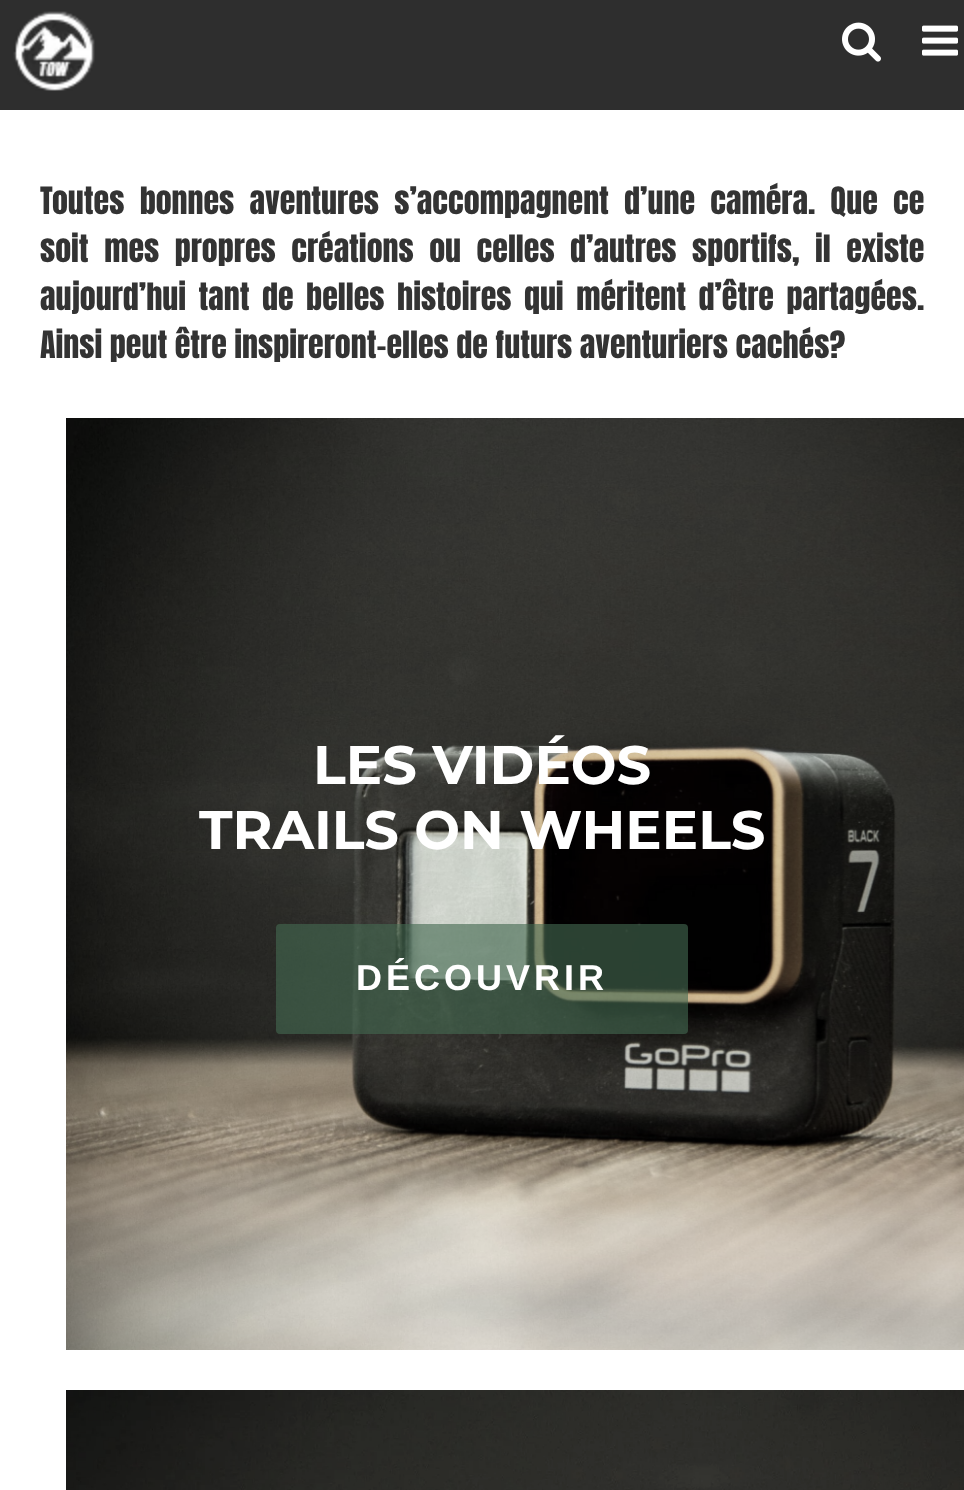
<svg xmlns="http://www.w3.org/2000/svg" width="964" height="1490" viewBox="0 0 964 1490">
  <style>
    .t1 { font: 32px Anton; fill: #333; }
    .t2 { font: bold 54.25px Montserrat; fill: #fff; }
    .t3 { font: bold 36px Liberation Sans; letter-spacing: 4px; fill: #fff; }
  </style>
  <rect width="100%" height="100%" fill="#2e2e2e"/>
  <image x="13" y="11" width="82" height="80" href="images/1.png"/>
  <image x="842" y="22" width="39" height="40" href="images/2.png"/>
  <image x="922" y="25" width="36" height="31" href="images/3.png"/>
  <rect x="0" y="110" width="964" height="1380" fill="#fff"/>
  <text x="40" y="214" word-spacing="7.75" class="t1">Toutes bonnes aventures s’accompagnent d’une caméra. Que ce</text>
  <text x="40" y="262" word-spacing="8" class="t1">soit mes propres créations ou celles d’autres sportifs, il existe</text>
  <text x="40" y="310" word-spacing="5" class="t1">aujourd’hui tant de belles histoires qui méritent d’être partagées.</text>
  <text x="40" y="358" class="t1">Ainsi peut être inspireront-elles de futurs aventuriers cachés?</text>
  <image x="66" y="418" width="898" height="932" href="images/4.png"/>
  <text x="313" y="784" class="t2">LES VIDÉOS</text>
  <text x="199" y="849" class="t2">TRAILS ON WHEELS</text>
  <rect x="276" y="924" width="412" height="110" rx="4" fill="#4469509e"/>
  <text x="356" y="990" class="t3">DÉCOUVRIR</text>
  <image x="66" y="1390" width="898" height="100" href="images/5.png"/>
</svg>
